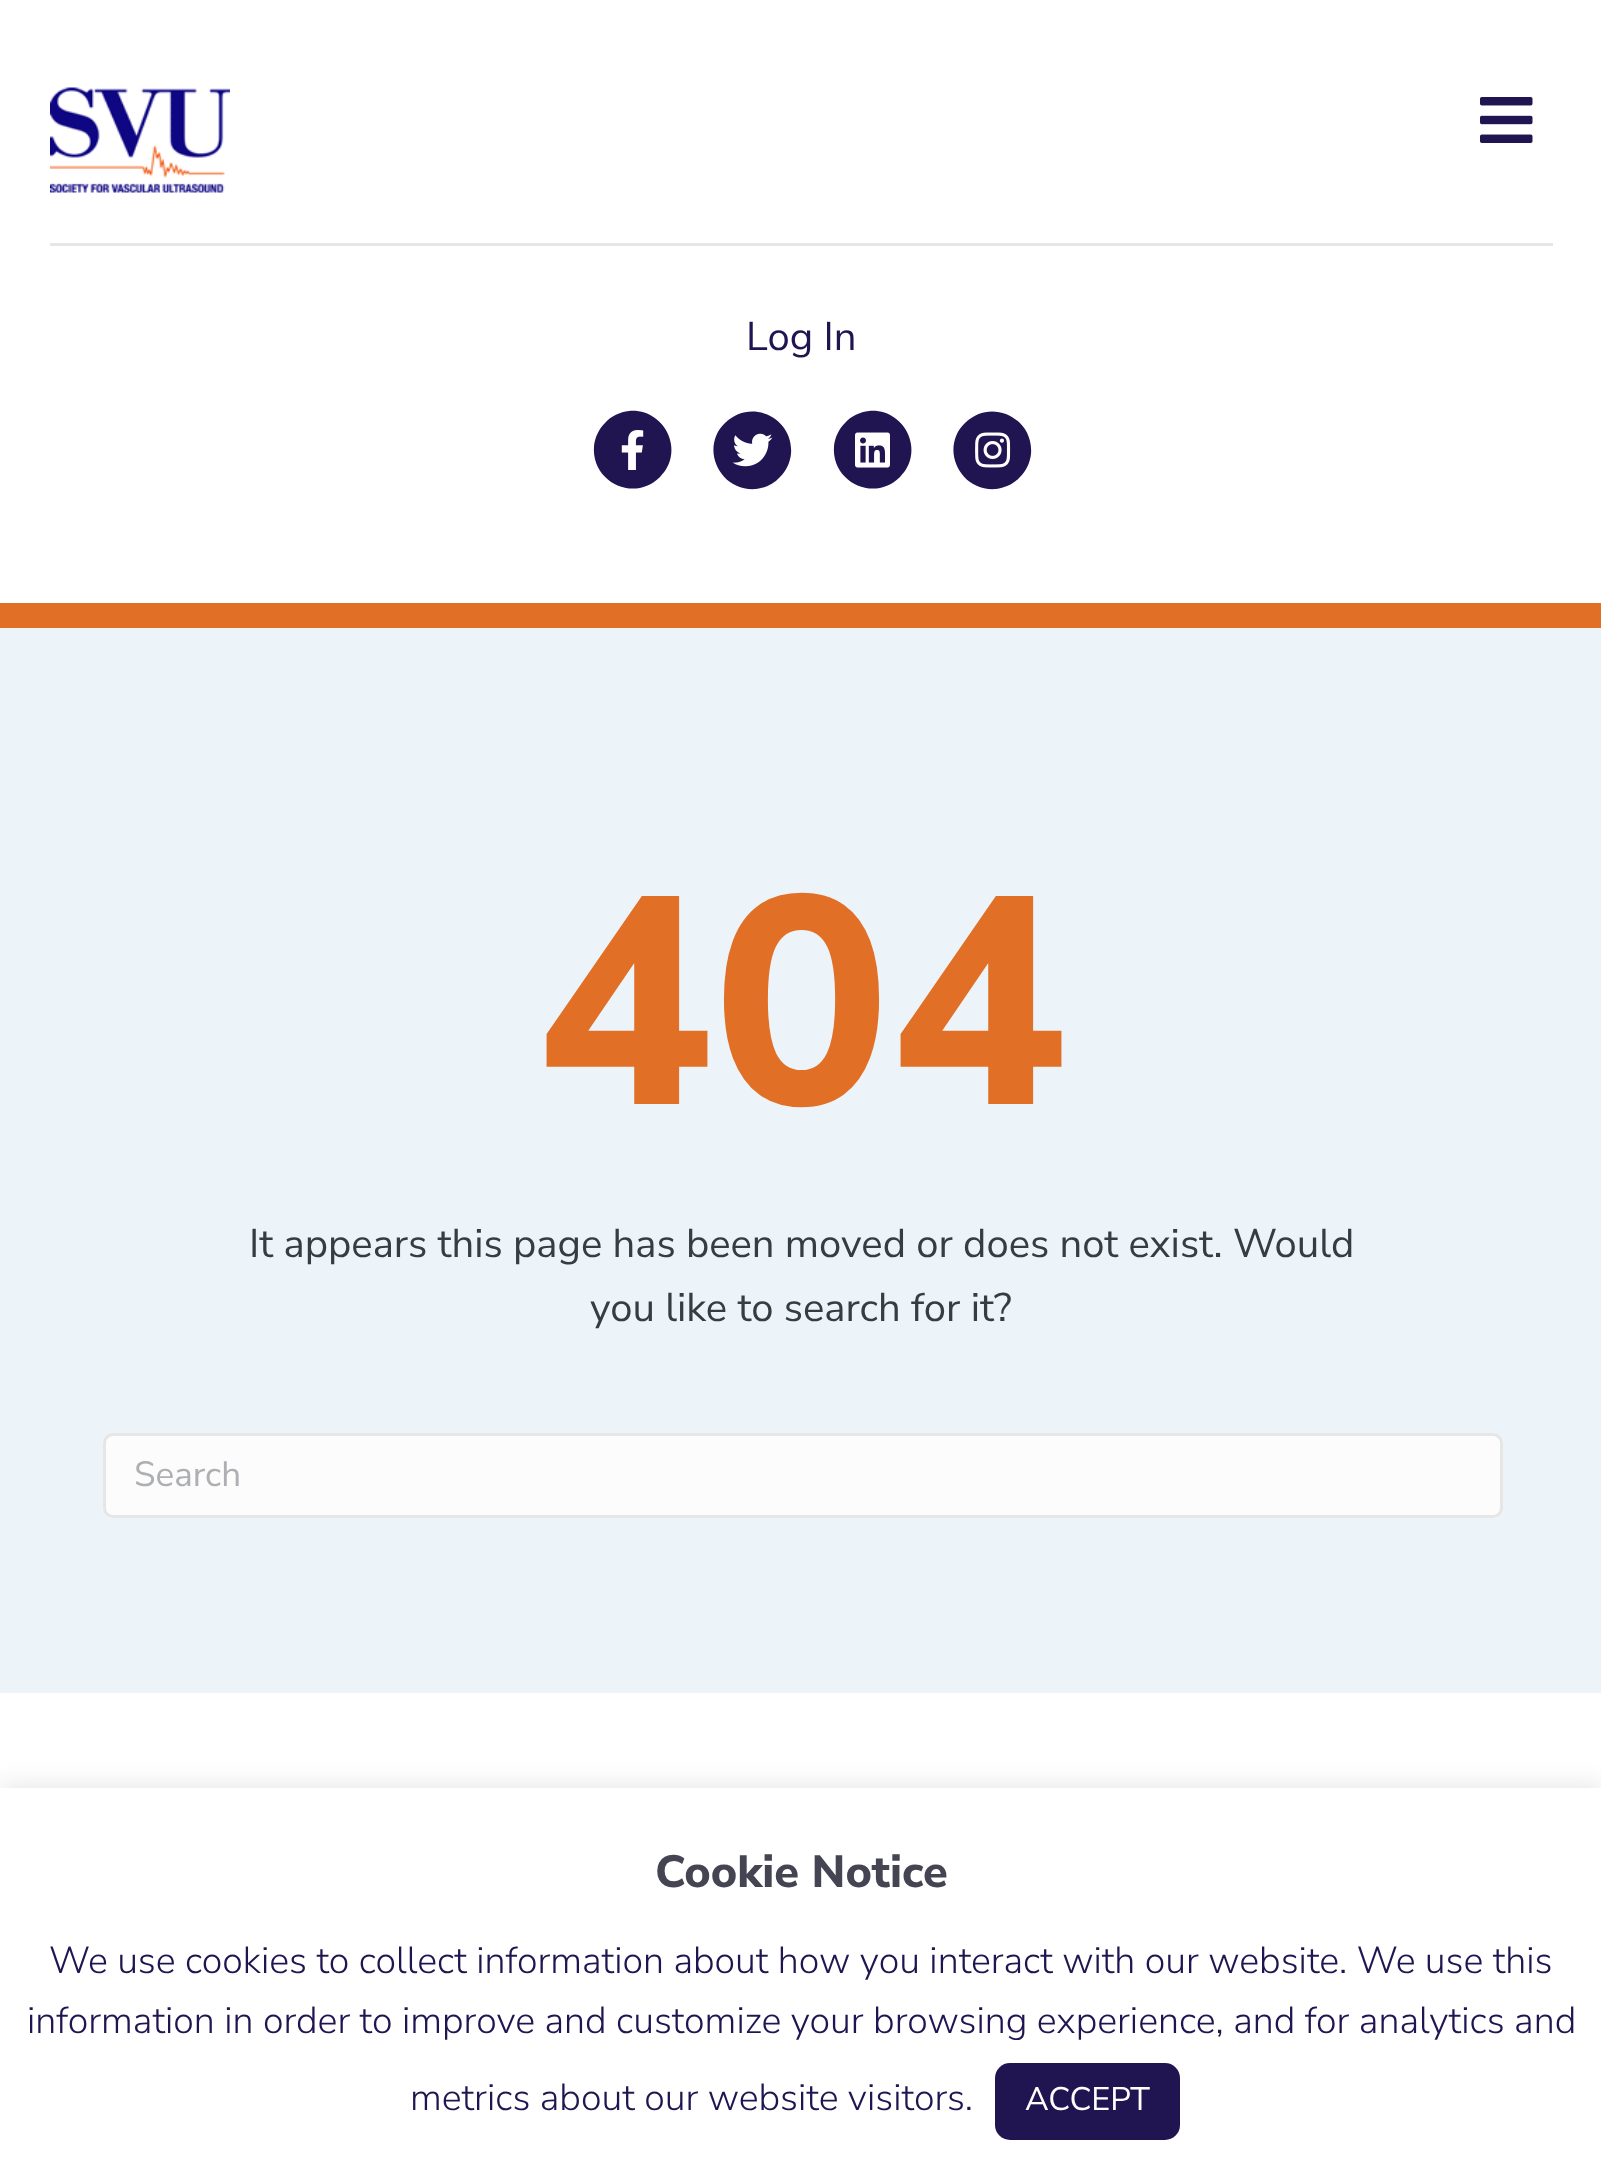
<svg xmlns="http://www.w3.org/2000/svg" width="1601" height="2182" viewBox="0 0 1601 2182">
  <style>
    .t1 { font: 40px Nunito Sans; fill: #211551; }
    .t2 { font: 800 295px Nunito Sans; fill: #e16f25; }
    .t3 { font: 40px Nunito Sans; fill: #373b42; }
    .t4 { font: 35px Nunito Sans; fill: #adafb2; }
    .t5 { font: 800 45px Nunito Sans; fill: #454453; }
    .t6 { font: 300 37.5px Nunito Sans; fill: #211551; }
    .t7 { font: 32.5px Nunito Sans; fill: #fff; }
  </style>
  <rect width="100%" height="100%" fill="#fff"/>
  <image x="1480" y="97" width="53" height="46" href="images/1.png"/>
  <image x="50" y="87" width="180" height="106" href="images/2.png"/>
  <rect x="50" y="243" width="1503" height="3" fill="#e6e6e6"/>
  <text x="746" y="350" class="t1">Log In</text>
  <path d="M605 423C611 416 620 412 629 411C665 408 686 452 660 477C634 503 591 482 594 446C595 437 599 429 605 423Z" fill="#211551"/>
  <image x="621" y="430" width="23" height="40" href="images/3.png"/>
  <path d="M725 423C751 397 794 418 791 454C790 463 786 471 780 477C774 484 765 488 756 489C720 492 699 448 725 423Z" fill="#211551"/>
  <image x="732" y="433" width="41" height="34" href="images/4.png"/>
  <path d="M845 423C851 416 860 412 869 411C905 408 926 452 900 477C874 503 831 482 834 446C835 437 839 429 845 423Z" fill="#211551"/>
  <image x="855" y="432" width="35" height="36" href="images/5.png"/>
  <path d="M965 423C991 397 1034 418 1031 454C1030 463 1026 471 1020 477C1014 484 1005 488 996 489C960 492 939 448 965 423Z" fill="#211551"/>
  <image x="975" y="432" width="36" height="36" href="images/6.png"/>
  <rect x="0" y="628" width="1601" height="1065" fill="#edf4f9"/>
  <rect x="0" y="603" width="1601" height="25" fill="#e16f25"/>
  <text x="536" y="1104" class="t2">404</text>
  <text x="249" y="1257" class="t3">It appears this page has been moved or does not exist. Would</text>
  <text x="590" y="1321" class="t3">you like to search for it?</text>
  <rect x="104.5" y="1434.5" width="1397" height="82" rx="8.5" fill="#fcfcfc" stroke="#e6e6e6" stroke-width="3"/>
  <text x="134" y="1486" class="t4">Search</text>
  <rect x="0" y="1785" width="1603" height="395" fill="#acabab4d" filter="blur(12.5px)"/>
  <rect x="0" y="1788" width="1601" height="394" fill="#fff"/>
  <text x="655" y="1887" class="t5">Cookie Notice</text>
  <text x="49" y="1973" class="t6">We use cookies to collect information about how you interact with our website. We use this</text>
  <text x="27" y="2033" class="t6">information in order to improve and customize your browsing experience, and for analytics and</text>
  <text x="410" y="2110" class="t6">metrics about our website visitors.</text>
  <rect x="995" y="2063" width="185" height="77" rx="15" fill="#211551"/>
  <text x="1025" y="2110" class="t7">ACCEPT</text>
</svg>
